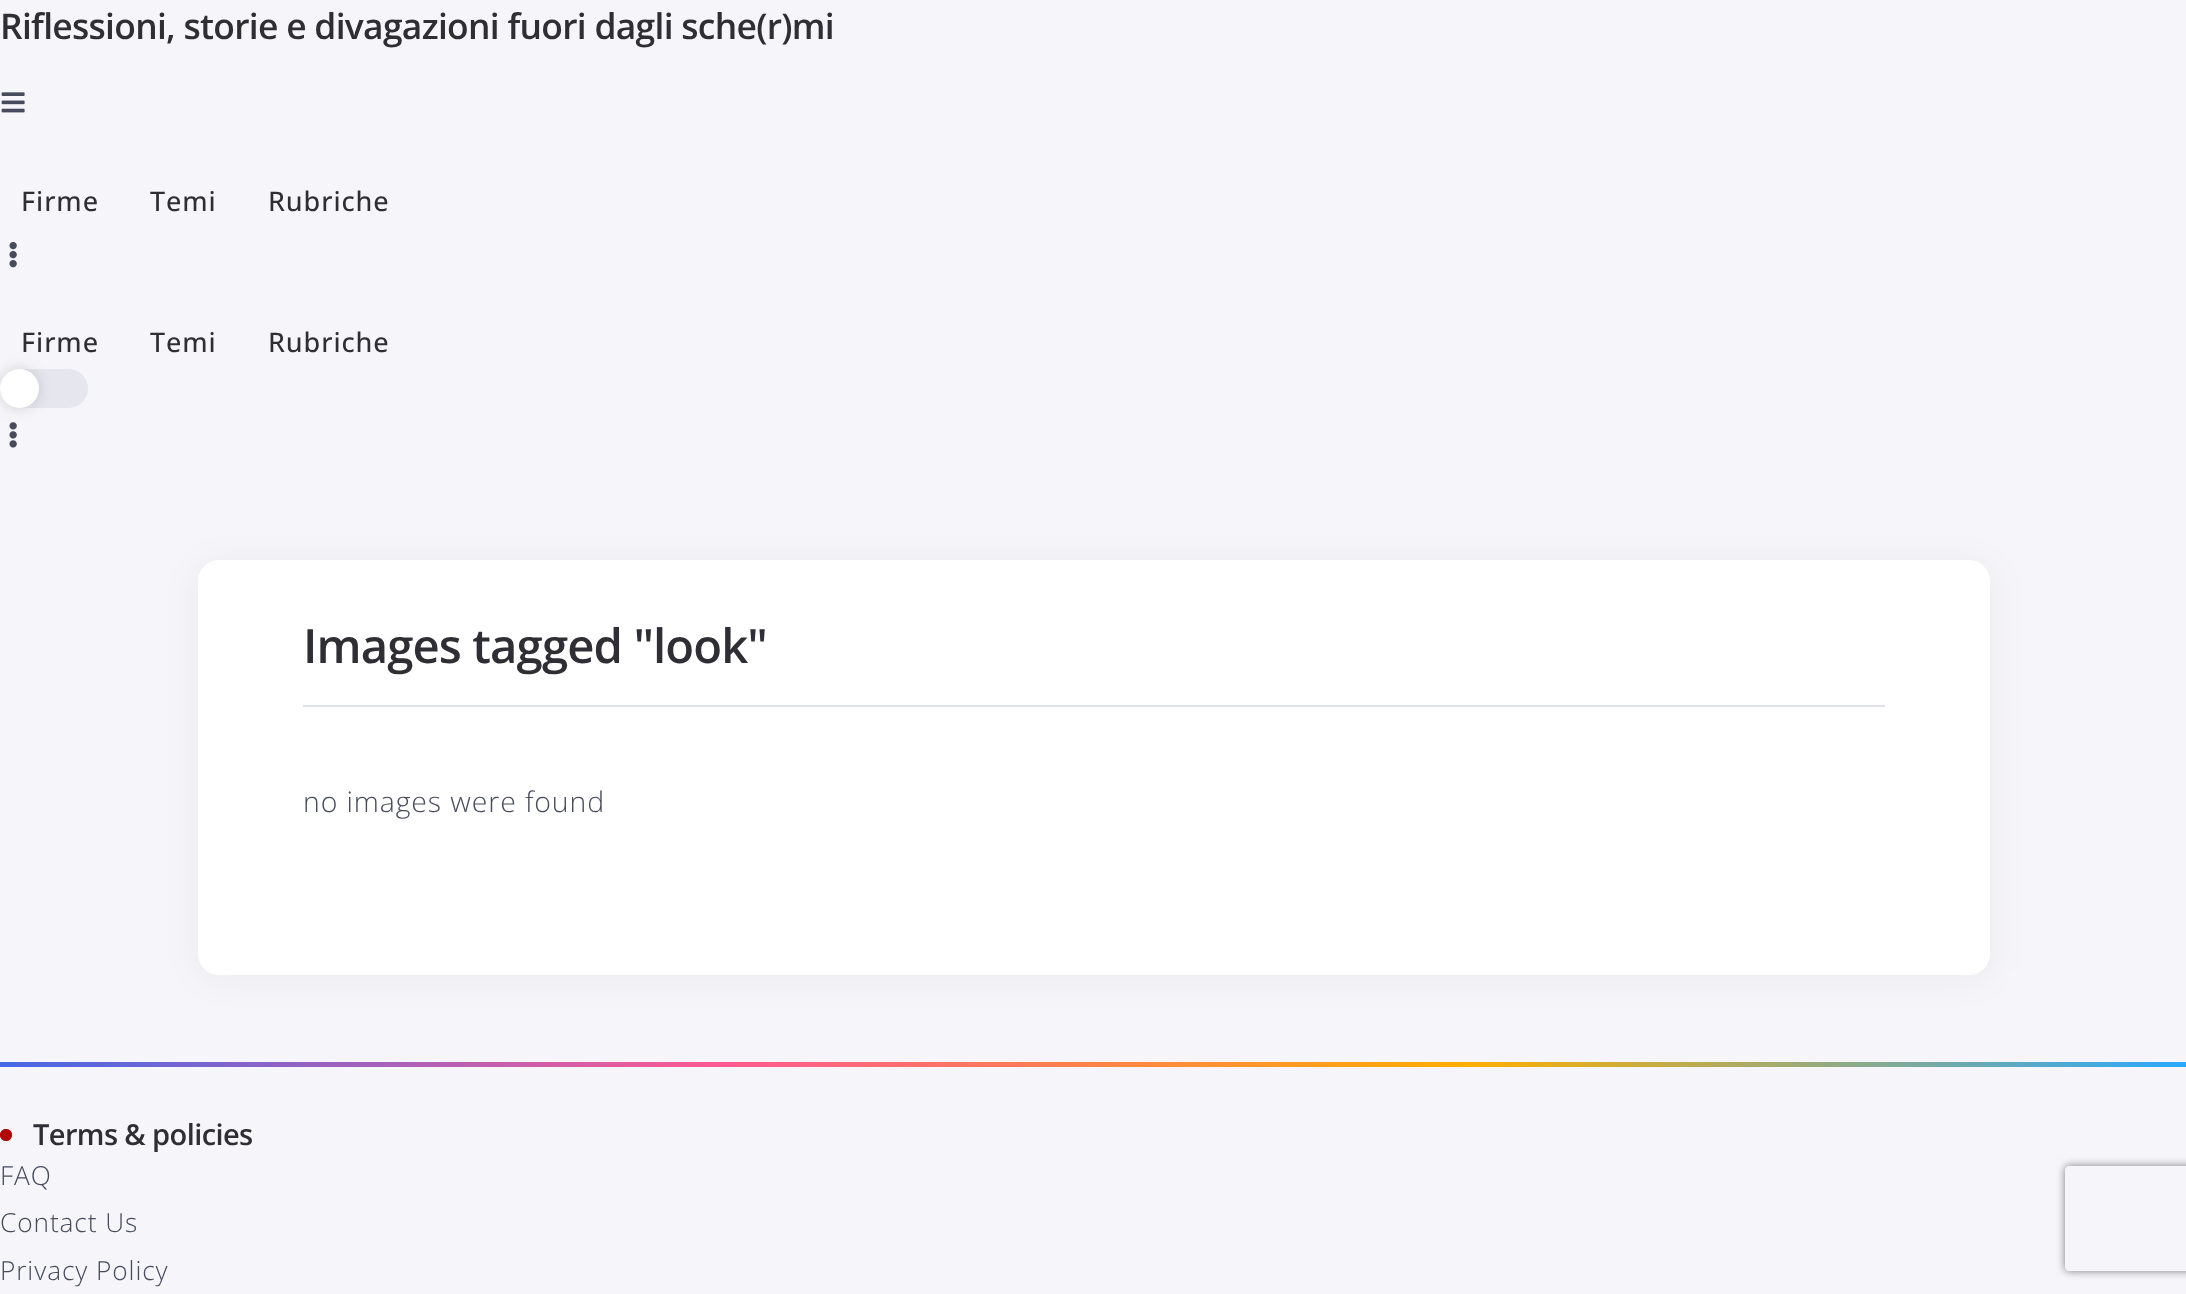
<svg xmlns="http://www.w3.org/2000/svg" width="2186" height="1294" viewBox="0 0 2186 1294">
  <style>
    .t1 { font: 600 35.4px Open Sans; letter-spacing: -0.7px; fill: #2f2e35; }
    .t2 { font: 500 27px Open Sans; letter-spacing: 0.9px; fill: #2f2e35; }
    .t3 { font: 600 47.25px Open Sans; letter-spacing: -0.9px; fill: #2f2e35; }
    .t4 { font: 300 28.4px Open Sans; letter-spacing: 0.9px; fill: #474c5d; }
    .t5 { font: 600 29px Open Sans; letter-spacing: -0.6px; fill: #2f2e35; }
    .t6 { font: 300 26.25px Open Sans; letter-spacing: 0.9px; fill: #474c5d; }
  </style>
  <defs>
    <linearGradient id="g1" gradientUnits="userSpaceOnUse" x1="0" y1="1065" x2="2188" y2="1065"><stop offset="0" stop-color="#4569e7"/><stop offset="0.33" stop-color="#ff5992"/><stop offset="0.67" stop-color="#ffae00"/><stop offset="1" stop-color="#29a8ff"/></linearGradient>
    <clipPath id="clip1"><path d="M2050 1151H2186V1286H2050ZM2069 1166H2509C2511 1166 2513 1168 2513 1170V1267C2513 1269 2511 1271 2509 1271H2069C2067 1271 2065 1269 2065 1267V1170C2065 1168 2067 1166 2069 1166Z" clip-rule="evenodd"/></clipPath>
  </defs>
  <rect width="100%" height="100%" fill="#f5f5fa"/>
  <text x="0" y="39" class="t1">Riflessioni, storie e divagazioni fuori dagli sche(r)mi</text>
  <image x="1" y="92" width="24" height="21" href="images/1.png"/>
  <text x="21" y="211" class="t2">Firme</text>
  <text x="150" y="211" class="t2">Temi</text>
  <text x="268" y="211" class="t2">Rubriche</text>
  <image x="9" y="242" width="8" height="26" href="images/2.png"/>
  <text x="21" y="352" class="t2">Firme</text>
  <text x="150" y="352" class="t2">Temi</text>
  <text x="268" y="352" class="t2">Rubriche</text>
  <rect x="0" y="369" width="88" height="39" rx="19.5" fill="#e6e7ee"/>
  <rect x="0" y="369" width="39" height="39" rx="19.5" fill="#2f313930" filter="blur(7px)"/>
  <circle cx="19.5" cy="388.5" r="19.5" fill="#fff"/>
  <image x="9" y="422" width="8" height="26" href="images/3.png"/>
  <rect x="198" y="564" width="1792" height="414" rx="21" fill="#0e0e130d" filter="blur(17.5px)"/>
  <rect x="198" y="560" width="1792" height="415" rx="21" fill="#fff"/>
  <rect x="303" y="705" width="1582" height="2" fill="#dfe1ea"/>
  <text x="303" y="663" class="t3">Images tagged "look"</text>
  <text x="303" y="812" class="t4">no images were found</text>
  <rect x="0" y="1062" width="2186" height="5" fill="url(#g1)"/>
  <circle cx="6" cy="1135" r="5" fill="#af0909" stroke="#af0909" stroke-width="2"/>
  <circle cx="6" cy="1135" r="5" fill="none" stroke="#af0909" stroke-width="2"/>
  <text x="33" y="1145" class="t5">Terms &amp; policies</text>
  <text x="0" y="1185" class="t6">FAQ</text>
  <text x="0" y="1232" class="t6">Contact Us</text>
  <text x="0" y="1280" class="t6">Privacy Policy</text>
  <g clip-path="url(#clip1)">
    <rect x="2065" y="1166" width="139" height="105" rx="4" fill="#808080" filter="blur(4.5px)"/>
  </g>
</svg>
